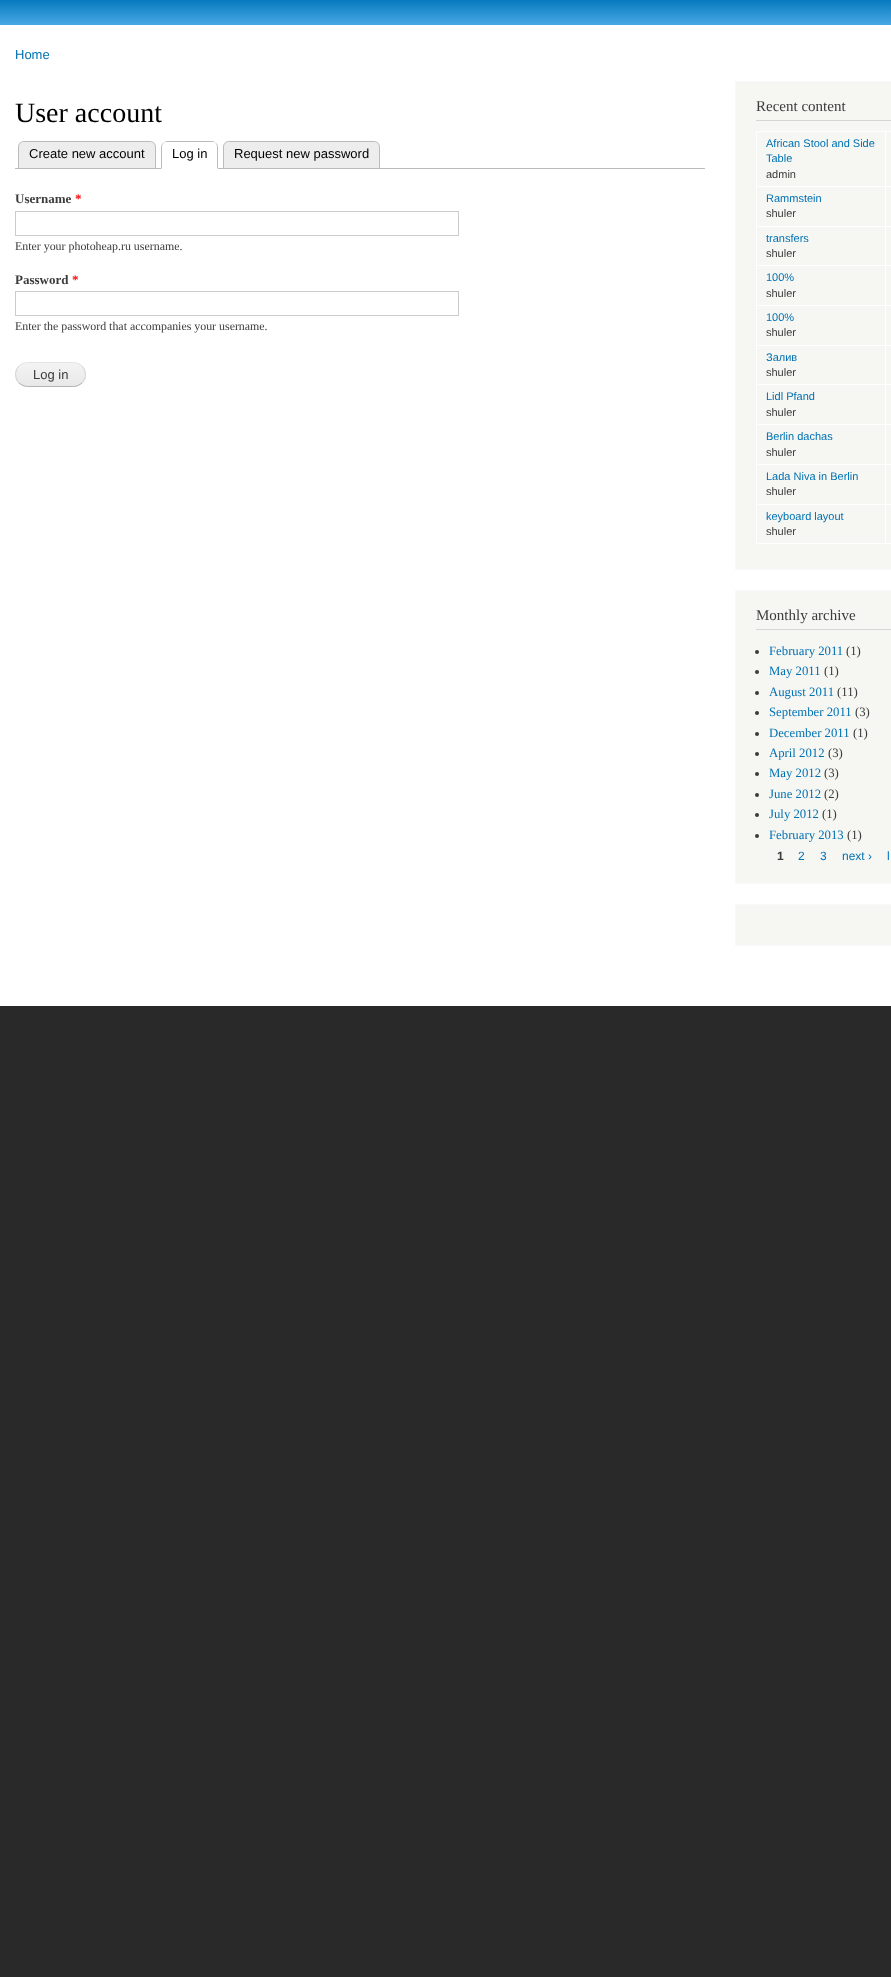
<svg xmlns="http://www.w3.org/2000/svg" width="891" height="1977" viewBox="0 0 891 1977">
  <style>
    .t1 { font: 13px Liberation Sans; fill: #0071b3; }
    .t2 { font: 28px Liberation Serif; fill: #000; }
    .t3 { font: 13px Liberation Sans; fill: #000; }
    .t4 { font: bold 13px Liberation Serif; fill: #3b3b3b; }
    .t5 { font: bold 13px Liberation Serif; fill: #f00; }
    .t6 { font: 11.9px Liberation Serif; fill: #3b3b3b; }
    .t7 { font: 13px Liberation Sans; fill: #3b3b3b; }
    .t8 { font: 15px Liberation Serif; fill: #3b3b3b; }
    .t9 { font: 11px Liberation Sans; fill: #0071b3; }
    .t10 { font: 11px Liberation Sans; fill: #3b3b3b; }
    .t11 { font: 12.75px Liberation Serif; fill: #0071b3; }
    .t12 { font: 12.75px Liberation Serif; fill: #3b3b3b; }
    .t13 { font: bold 12px Liberation Sans; fill: #3b3b3b; }
    .t14 { font: 12px Liberation Sans; fill: #0071b3; }
  </style>
  <defs>
    <linearGradient id="g1" gradientUnits="userSpaceOnUse" x1="480" y1="0" x2="480" y2="25"><stop offset="0" stop-color="#0779bf"/><stop offset="1" stop-color="#48a9e4"/></linearGradient>
  </defs>
  <rect width="100%" height="100%" fill="#292929"/>
  <rect x="0" y="25" width="891" height="981" fill="#fff"/>
  <rect x="0" y="0" width="891" height="25" fill="url(#g1)"/>
  <text x="15" y="59" class="t1">Home</text>
  <text x="15" y="122" class="t2">User account</text>
  <rect x="15" y="168" width="690" height="1" fill="#bbb"/>
  <path d="M24 141H150C153.5 141 156 143.5 156 147V168H18V147C18 143.5 20.5 141 24 141Z" fill="#ededed"/>
  <path d="M24 141H150C153 141 156 144 156 147V168H18V147C18 144 21 141 24 141ZM24 142H150C153 142 155 144 155 147V168H19V147C19 144 21 142 24 142Z" fill="#bbb" fill-rule="evenodd"/>
  <text x="29" y="158" class="t3">Create new account</text>
  <path d="M167 141H212C215.5 141 218 143.5 218 147V169H161V147C161 143.5 163.5 141 167 141Z" fill="#fff"/>
  <path d="M167 141C166 141 164 142 163 143C164 142 166 142 167 142H212C214 142 215 142 216 143C215 142 214 141 212 141ZM218 169V147C218 145.5 217 144 216 143L215.5 143.5C216.5 144 217 145.5 217 147V168Z" fill="#bbb"/>
  <path d="M218 169L217 168H162L161 169Z" fill="#fff"/>
  <path d="M161 169L162 168V147C162 145.5 162.5 144 163.5 143.5L163 143C162 144 161 145.5 161 147Z" fill="#bbb"/>
  <text x="172" y="158" class="t3">Log in</text>
  <path d="M229 141H374C377.5 141 380 143.5 380 147V168H223V147C223 143.5 225.5 141 229 141Z" fill="#ededed"/>
  <path d="M229 141H374C377 141 380 144 380 147V168H223V147C223 144 226 141 229 141ZM229 142H374C377 142 379 144 379 147V168H224V147C224 144 226 142 229 142Z" fill="#bbb" fill-rule="evenodd"/>
  <text x="234" y="158" class="t3">Request new password</text>
  <text x="15" y="203" class="t4">Username</text>
  <text x="75" y="203" class="t5">*</text>
  <rect x="15.5" y="211.5" width="443" height="24" fill="none" stroke="#ccc"/>
  <text x="15" y="250" class="t6">Enter your photoheap.ru username.</text>
  <text x="15" y="284" class="t4">Password</text>
  <text x="72" y="284" class="t5">*</text>
  <rect x="15.5" y="291.5" width="443" height="24" fill="none" stroke="#ccc"/>
  <text x="15" y="330" class="t6">Enter the password that accompanies your username.</text>
  <image x="15" y="363" width="71" height="24" href="images/1.png"/>
  <path d="M19 366C21.5 364 24.5 362.5 27.5 362.5H73.5C76.5 362.5 79.5 364 82 366" fill="none" stroke="#e4e4e4"/>
  <path d="M82 366C86.5 370.5 86.5 378.5 82 383" fill="none" stroke="#d2d2d2"/>
  <path d="M82 383C79.5 385 76.5 386.5 73.5 386.5H27.5C24.5 386.5 21.5 385 19 383" fill="none" stroke="#b4b4b4"/>
  <path d="M19 383C14.5 378.5 14.5 370.5 19 366" fill="none" stroke="#d2d2d2"/>
  <text x="33" y="379" class="t7">Log in</text>
  <rect x="735.5" y="81.5" width="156" height="488" fill="#f6f6f2" stroke="#f9f9f9"/>
  <rect x="756" y="120" width="135" height="1" fill="#d6d6d6"/>
  <text x="756" y="111" class="t8">Recent content</text>
  <rect x="885" y="131" width="6" height="1" fill="#fff"/>
  <rect x="885" y="186" width="6" height="1" fill="#fff"/>
  <rect x="885" y="226" width="6" height="1" fill="#fff"/>
  <rect x="885" y="265" width="6" height="1" fill="#fff"/>
  <rect x="885" y="305" width="6" height="1" fill="#fff"/>
  <rect x="885" y="345" width="6" height="1" fill="#fff"/>
  <rect x="885" y="384" width="6" height="1" fill="#fff"/>
  <rect x="885" y="424" width="6" height="1" fill="#fff"/>
  <rect x="885" y="464" width="6" height="1" fill="#fff"/>
  <rect x="885" y="504" width="6" height="1" fill="#fff"/>
  <rect x="885" y="543" width="6" height="1" fill="#fff"/>
  <rect x="885" y="504" width="1" height="40" fill="#fff"/>
  <rect x="756" y="504" width="130" height="1" fill="#fff"/>
  <rect x="885" y="464" width="1" height="41" fill="#fff"/>
  <rect x="756" y="464" width="130" height="1" fill="#fff"/>
  <rect x="885" y="424" width="1" height="41" fill="#fff"/>
  <rect x="756" y="424" width="130" height="1" fill="#fff"/>
  <rect x="885" y="384" width="1" height="41" fill="#fff"/>
  <rect x="756" y="384" width="130" height="1" fill="#fff"/>
  <rect x="885" y="345" width="1" height="40" fill="#fff"/>
  <rect x="756" y="345" width="130" height="1" fill="#fff"/>
  <rect x="885" y="305" width="1" height="41" fill="#fff"/>
  <rect x="756" y="305" width="130" height="1" fill="#fff"/>
  <rect x="885" y="265" width="1" height="41" fill="#fff"/>
  <rect x="756" y="265" width="130" height="1" fill="#fff"/>
  <rect x="885" y="226" width="1" height="40" fill="#fff"/>
  <rect x="756" y="226" width="130" height="1" fill="#fff"/>
  <rect x="885" y="186" width="1" height="41" fill="#fff"/>
  <rect x="756" y="186" width="130" height="1" fill="#fff"/>
  <rect x="885" y="131" width="1" height="56" fill="#fff"/>
  <rect x="756" y="131" width="130" height="1" fill="#fff"/>
  <rect x="756" y="543" width="130" height="1" fill="#fff"/>
  <rect x="756" y="504" width="1" height="40" fill="#fff"/>
  <rect x="756" y="464" width="1" height="41" fill="#fff"/>
  <rect x="756" y="424" width="1" height="41" fill="#fff"/>
  <rect x="756" y="384" width="1" height="41" fill="#fff"/>
  <rect x="756" y="345" width="1" height="40" fill="#fff"/>
  <rect x="756" y="305" width="1" height="41" fill="#fff"/>
  <rect x="756" y="265" width="1" height="41" fill="#fff"/>
  <rect x="756" y="226" width="1" height="40" fill="#fff"/>
  <rect x="756" y="186" width="1" height="41" fill="#fff"/>
  <rect x="756" y="131" width="1" height="56" fill="#fff"/>
  <text x="766" y="147" class="t9">African Stool and Side</text>
  <text x="766" y="162" class="t9">Table</text>
  <text x="766" y="178" class="t10">admin</text>
  <text x="766" y="202" class="t9">Rammstein</text>
  <text x="766" y="217" class="t10">shuler</text>
  <text x="766" y="242" class="t9">transfers</text>
  <text x="766" y="257" class="t10">shuler</text>
  <text x="766" y="281" class="t9">100%</text>
  <text x="766" y="297" class="t10">shuler</text>
  <text x="766" y="321" class="t9">100%</text>
  <text x="766" y="336" class="t10">shuler</text>
  <text x="766" y="361" class="t9">Залив</text>
  <text x="766" y="376" class="t10">shuler</text>
  <text x="766" y="400" class="t9">Lidl Pfand</text>
  <text x="766" y="416" class="t10">shuler</text>
  <text x="766" y="440" class="t9">Berlin dachas</text>
  <text x="766" y="456" class="t10">shuler</text>
  <text x="766" y="480" class="t9">Lada Niva in Berlin</text>
  <text x="766" y="495" class="t10">shuler</text>
  <text x="766" y="520" class="t9">keyboard layout</text>
  <text x="766" y="535" class="t10">shuler</text>
  <rect x="735.5" y="590.5" width="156" height="293" fill="#f6f6f2" stroke="#f9f9f9"/>
  <rect x="756" y="629" width="135" height="1" fill="#d6d6d6"/>
  <text x="756" y="620" class="t8">Monthly archive</text>
  <circle cx="757" cy="652" r="2" fill="#3b3b3b"/>
  <text x="769" y="655" class="t11">February 2011</text>
  <text x="846" y="655" class="t12">(1)</text>
  <circle cx="757" cy="672" r="2" fill="#3b3b3b"/>
  <text x="769" y="675" class="t11">May 2011</text>
  <text x="824" y="675" class="t12">(1)</text>
  <circle cx="757" cy="693" r="2" fill="#3b3b3b"/>
  <text x="769" y="696" class="t11">August 2011</text>
  <text x="837" y="696" class="t12">(11)</text>
  <circle cx="757" cy="713" r="2" fill="#3b3b3b"/>
  <text x="769" y="716" class="t11">September 2011</text>
  <text x="855" y="716" class="t12">(3)</text>
  <circle cx="757" cy="734" r="2" fill="#3b3b3b"/>
  <text x="769" y="737" class="t11">December 2011</text>
  <text x="853" y="737" class="t12">(1)</text>
  <circle cx="757" cy="754" r="2" fill="#3b3b3b"/>
  <text x="769" y="757" class="t11">April 2012</text>
  <text x="828" y="757" class="t12">(3)</text>
  <circle cx="757" cy="774" r="2" fill="#3b3b3b"/>
  <text x="769" y="777" class="t11">May 2012</text>
  <text x="824" y="777" class="t12">(3)</text>
  <circle cx="757" cy="795" r="2" fill="#3b3b3b"/>
  <text x="769" y="798" class="t11">June 2012</text>
  <text x="824" y="798" class="t12">(2)</text>
  <circle cx="757" cy="815" r="2" fill="#3b3b3b"/>
  <text x="769" y="818" class="t11">July 2012</text>
  <text x="822" y="818" class="t12">(1)</text>
  <circle cx="757" cy="836" r="2" fill="#3b3b3b"/>
  <text x="769" y="839" class="t11">February 2013</text>
  <text x="847" y="839" class="t12">(1)</text>
  <text x="777" y="860" class="t13">1</text>
  <text x="798" y="860" class="t14">2</text>
  <text x="820" y="860" class="t14">3</text>
  <text x="842" y="860" class="t14">next ›</text>
  <text x="887" y="860" class="t14">l</text>
  <rect x="735.5" y="904.5" width="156" height="41" fill="#f6f6f2" stroke="#f9f9f9"/>
</svg>
